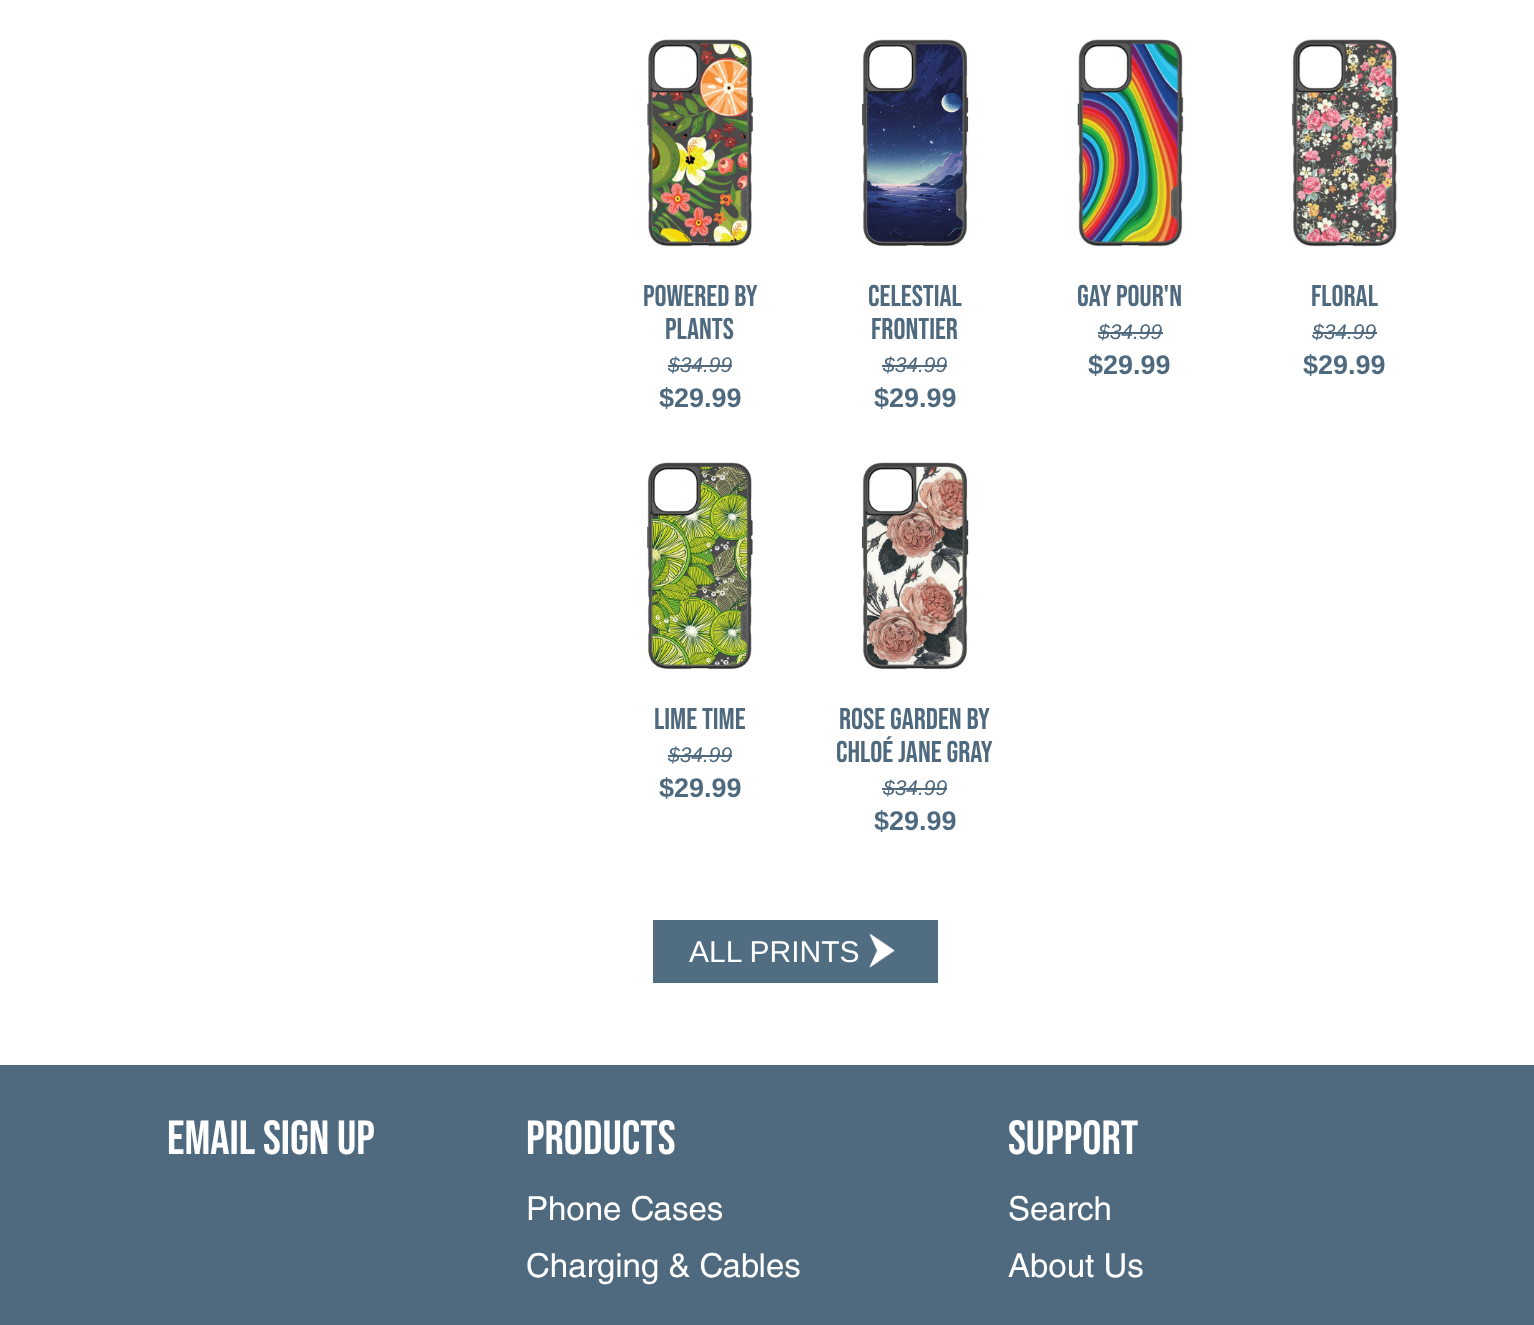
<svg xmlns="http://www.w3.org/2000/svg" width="1534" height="1325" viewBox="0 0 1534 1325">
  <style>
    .t1 { font: 30px Bebas Neue; fill: #4f6a7f; }
    .t2 { font: italic 21px Liberation Sans; fill: #4f6a7f; }
    .t3 { font: bold 27px Liberation Sans; fill: #4f6a7f; }
    .t4 { font: 30px Liberation Sans; fill: #fff; }
    .t5 { font: 48px Bebas Neue; fill: #fff; }
    .t6 { font: 33px Helvetica; fill: #fff; }
  </style>
  <rect width="100%" height="100%" fill="#fff"/>
  <image x="647" y="39" width="107" height="208" href="images/1.png"/>
  <text x="643" y="306" class="t1">POWERED BY</text>
  <text x="665" y="339" class="t1">PLANTS</text>
  <text x="668" y="372" class="t2">$34.99</text>
  <rect x="668" y="365" width="64" height="2" fill="#4f6a7f"/>
  <text x="659" y="407" class="t3">$29.99</text>
  <image x="862" y="39" width="107" height="208" href="images/2.png"/>
  <text x="868" y="306" class="t1">CELESTIAL</text>
  <text x="871" y="339" class="t1">FRONTIER</text>
  <text x="883" y="372" class="t2">$34.99</text>
  <rect x="882" y="365" width="65" height="2" fill="#4f6a7f"/>
  <text x="874" y="407" class="t3">$29.99</text>
  <image x="1077" y="39" width="107" height="208" href="images/3.png"/>
  <text x="1077" y="306" class="t1">GAY POUR'N</text>
  <text x="1098" y="339" class="t2">$34.99</text>
  <rect x="1098" y="332" width="65" height="2" fill="#4f6a7f"/>
  <text x="1088" y="374" class="t3">$29.99</text>
  <image x="1291" y="39" width="108" height="208" href="images/4.png"/>
  <text x="1311" y="306" class="t1">FLORAL</text>
  <text x="1312" y="339" class="t2">$34.99</text>
  <rect x="1313" y="332" width="64" height="2" fill="#4f6a7f"/>
  <text x="1303" y="374" class="t3">$29.99</text>
  <image x="647" y="462" width="106" height="208" href="images/5.png"/>
  <text x="654" y="729" class="t1">LIME TIME</text>
  <text x="668" y="762" class="t2">$34.99</text>
  <rect x="668" y="755" width="64" height="2" fill="#4f6a7f"/>
  <text x="659" y="797" class="t3">$29.99</text>
  <image x="861" y="462" width="108" height="208" href="images/6.png"/>
  <text x="839" y="729" class="t1">ROSE GARDEN BY</text>
  <text x="836" y="762" class="t1">CHLOÉ JANE GRAY</text>
  <text x="883" y="795" class="t2">$34.99</text>
  <rect x="882" y="788" width="65" height="2" fill="#4f6a7f"/>
  <text x="874" y="830" class="t3">$29.99</text>
  <rect x="653" y="920" width="285" height="63" fill="#506d81"/>
  <text x="689" y="962" class="t4">ALL PRINTS</text>
  <image x="869" y="934" width="26" height="34" href="images/7.png"/>
  <rect x="0" y="1065" width="1534" height="260" fill="#4f6a7f"/>
  <text x="167" y="1154" class="t5">EMAIL SIGN UP</text>
  <text x="526" y="1154" class="t5">PRODUCTS</text>
  <text x="526" y="1220" class="t6">Phone Cases</text>
  <text x="526" y="1277" class="t6">Charging &amp; Cables</text>
  <text x="1008" y="1154" class="t5">SUPPORT</text>
  <text x="1008" y="1220" class="t6">Search</text>
  <text x="1008" y="1277" class="t6">About Us</text>
</svg>
